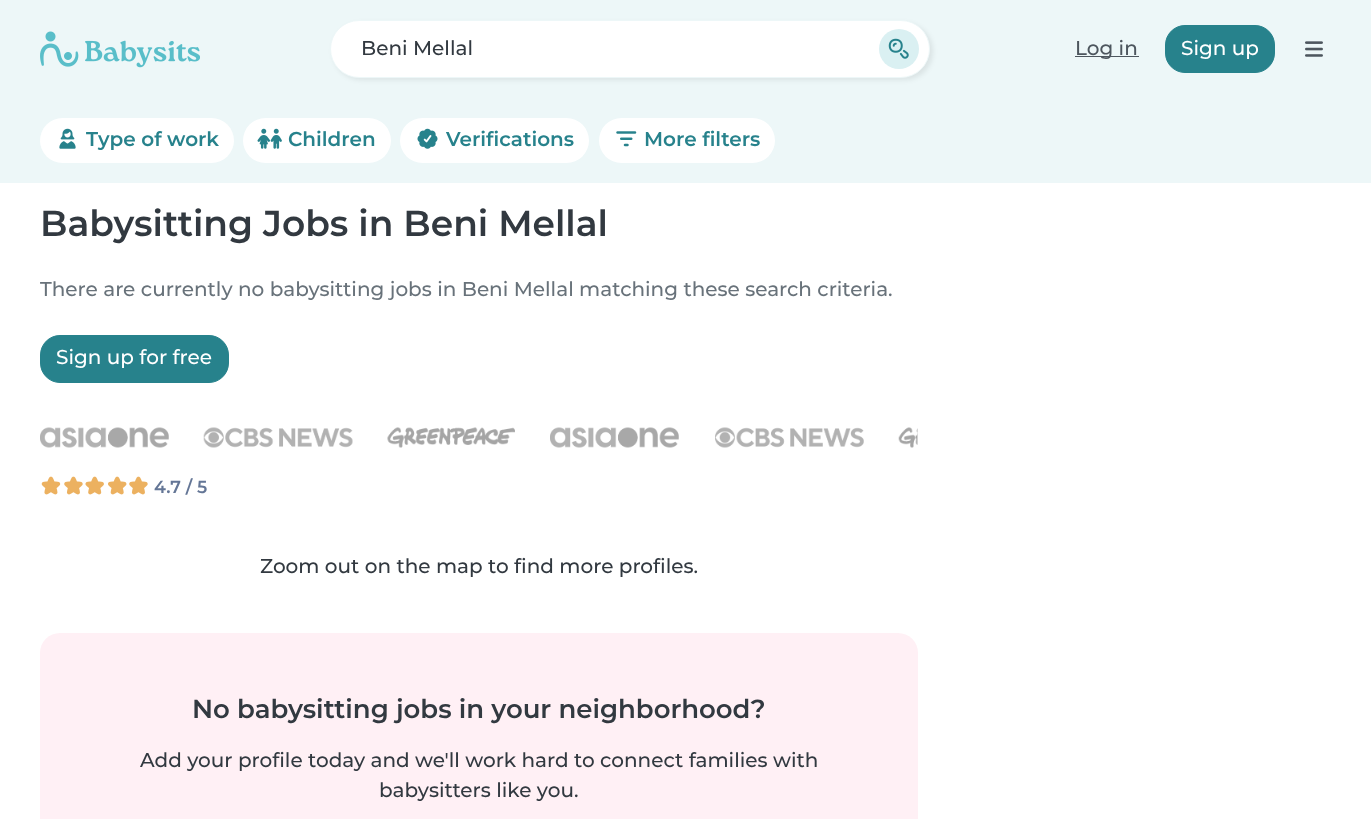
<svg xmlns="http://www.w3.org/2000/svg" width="1371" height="819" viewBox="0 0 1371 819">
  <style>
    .t1 { font: 500 20px Montserrat; fill: #323940; }
    .t2 { font: 500 20px Montserrat; fill: #4d565e; }
    .t3 { font: 500 20px Montserrat; fill: #fff; }
    .t4 { font: 600 20px Montserrat; fill: #27828c; }
    .t5 { font: 600 36px Montserrat; fill: #323940; }
    .t6 { font: 500 20px Montserrat; fill: #68727a; }
    .t7 { font: 600 17.5px Montserrat; fill: #647696; }
    .t8 { font: 600 26px Montserrat; fill: #323940; }
  </style>
  <rect width="100%" height="100%" fill="#fff"/>
  <rect x="0" y="0" width="1371" height="183" fill="#edf7f8"/>
  <image x="40" y="31" width="160" height="37" href="images/1.png"/>
  <rect x="333" y="23" width="600" height="57" rx="28.5" fill="#00000014" filter="blur(2.5px)"/>
  <rect x="330.5" y="20.5" width="599" height="57" rx="28.5" fill="#fff" stroke="#edf7f8"/>
  <text x="361" y="55" class="t1">Beni Mellal</text>
  <circle cx="899" cy="49" r="20" fill="#daf0f2"/>
  <image x="888" y="38" width="21" height="21" href="images/2.png"/>
  <rect x="1075" y="56" width="64" height="1" fill="#4d565e"/>
  <text x="1075" y="55" class="t2">Log in</text>
  <rect x="1165.5" y="25.5" width="109" height="47" rx="19.5" fill="#27828c" stroke="#27828c"/>
  <text x="1181" y="55" class="t3">Sign up</text>
  <image x="1305" y="41" width="18" height="16" href="images/3.png"/>
  <rect x="40" y="118" width="194" height="45" rx="22.5" fill="#fff"/>
  <image x="59" y="128" width="17" height="21" href="images/4.png"/>
  <text x="86" y="146" class="t4">Type of work</text>
  <rect x="243" y="118" width="148" height="45" rx="22.5" fill="#fff"/>
  <image x="257" y="128" width="25" height="21" href="images/5.png"/>
  <text x="288" y="146" class="t4">Children</text>
  <rect x="400" y="118" width="189" height="45" rx="22.5" fill="#fff"/>
  <image x="417" y="128" width="21" height="21" href="images/6.png"/>
  <text x="446" y="146" class="t4">Verifications</text>
  <rect x="599" y="118" width="176" height="45" rx="22.5" fill="#fff"/>
  <image x="616" y="131" width="21" height="16" href="images/7.png"/>
  <text x="644" y="146" class="t4">More filters</text>
  <text x="40" y="236" class="t5">Babysitting Jobs in Beni Mellal</text>
  <text x="40" y="296" class="t6">There are currently no babysitting jobs in Beni Mellal matching these search criteria.</text>
  <rect x="40.5" y="335.5" width="188" height="47" rx="19.5" fill="#27828c" stroke="#27828c"/>
  <text x="56" y="364" class="t3">Sign up for free</text>
  <image x="40" y="427" width="129" height="21" href="images/8.png"/>
  <image x="203" y="427" width="150" height="21" href="images/9.png"/>
  <image x="387" y="427" width="128" height="21" href="images/10.png"/>
  <image x="550" y="427" width="129" height="21" href="images/8.png"/>
  <image x="715" y="427" width="149" height="21" href="images/11.png"/>
  <image x="898" y="427" width="20" height="21" href="images/12.png"/>
  <image x="41" y="476" width="20" height="19" href="images/13.png"/>
  <image x="64" y="476" width="19" height="19" href="images/14.png"/>
  <image x="85" y="476" width="19" height="19" href="images/15.png"/>
  <image x="108" y="476" width="19" height="19" href="images/16.png"/>
  <image x="129" y="476" width="19" height="19" href="images/14.png"/>
  <text x="154" y="493" class="t7">4.7 / 5</text>
  <text x="260" y="573" class="t1">Zoom out on the map to find more profiles.</text>
  <rect x="40" y="633" width="878" height="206" rx="20" fill="#fff0f5"/>
  <text x="192" y="718" class="t8">No babysitting jobs in your neighborhood?</text>
  <text x="140" y="767" class="t1">Add your profile today and we'll work hard to connect families with</text>
  <text x="379" y="797" class="t1">babysitters like you.</text>
</svg>
